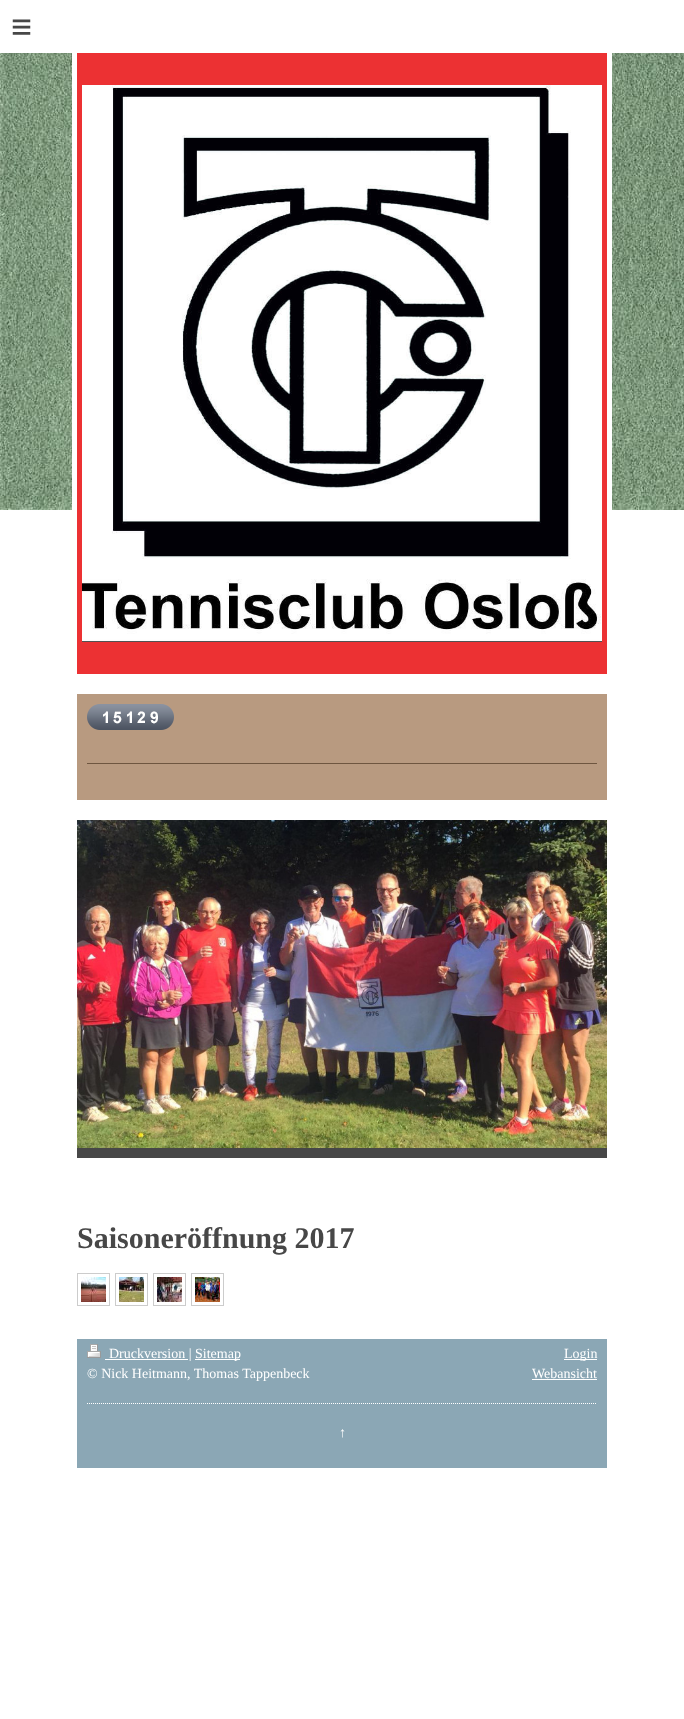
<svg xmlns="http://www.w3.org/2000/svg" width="684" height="1719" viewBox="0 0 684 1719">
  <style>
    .t1 { font: 36px Liberation Sans; letter-spacing: 10px; fill: #474747; }
    .t2 { font: bold 30px Liberation Serif; fill: #474747; }
    .t3 { font: 14px Liberation Serif; fill: #fff; }
  </style>
  <rect width="100%" height="100%" fill="#fff"/>
  <image x="0" y="53" width="684" height="457" href="images/1.png"/>
  <text x="11" y="39" class="t1">≡</text>
  <rect x="72" y="53" width="540" height="457" fill="#fff"/>
  <rect x="77" y="53" width="530" height="621" fill="#ec3133"/>
  <image x="82" y="85" width="520" height="557" href="images/2.png"/>
  <rect x="77" y="694" width="530" height="106" fill="#b89a80"/>
  <image x="87" y="704" width="14" height="26" href="images/3.png"/>
  <image x="101" y="704" width="10" height="26" href="images/4.png"/>
  <image x="111" y="704" width="14" height="26" href="images/5.png"/>
  <image x="125" y="704" width="10" height="26" href="images/4.png"/>
  <image x="135" y="704" width="13" height="26" href="images/6.png"/>
  <image x="148" y="704" width="13" height="26" href="images/7.png"/>
  <image x="161" y="704" width="13" height="26" href="images/8.png"/>
  <rect x="87" y="763" width="510" height="1" fill="#6e5640"/>
  <rect x="77" y="1148" width="530" height="10" fill="#474747"/>
  <image x="77" y="820" width="530" height="328" href="images/9.png"/>
  <text x="77" y="1248" class="t2">Saisoneröffnung 2017</text>
  <rect x="77.5" y="1273.5" width="32" height="32" fill="none" stroke="#ccc"/>
  <image x="81" y="1277" width="25" height="25" href="images/10.png"/>
  <rect x="115.5" y="1273.5" width="32" height="32" fill="none" stroke="#ccc"/>
  <image x="119" y="1277" width="25" height="25" href="images/11.png"/>
  <rect x="153.5" y="1273.5" width="32" height="32" fill="none" stroke="#ccc"/>
  <image x="157" y="1277" width="25" height="25" href="images/12.png"/>
  <rect x="191.5" y="1273.5" width="32" height="32" fill="none" stroke="#ccc"/>
  <image x="195" y="1277" width="25" height="25" href="images/13.png"/>
  <rect x="77" y="1339" width="530" height="129" fill="#8ba7b5"/>
  <image x="87" y="1344" width="14" height="14" href="images/14.png"/>
  <rect x="105" y="1359" width="83" height="1" fill="#fff"/>
  <text x="109" y="1358" class="t3">Druckversion |</text>
  <rect x="195" y="1359" width="45" height="1" fill="#fff"/>
  <text x="195" y="1358" class="t3">Sitemap</text>
  <text x="87" y="1378" class="t3">© Nick Heitmann, Thomas Tappenbeck</text>
  <rect x="564" y="1359" width="33" height="1" fill="#fff"/>
  <text x="564" y="1358" class="t3">Login</text>
  <text x="532" y="1378" class="t3">Webansicht</text>
  <rect x="532" y="1379" width="65" height="1" fill="#fff"/>
  <path d="M87 1403.5H597" fill="none" stroke="#fff" stroke-dasharray="1 1"/>
  <text x="339" y="1437" class="t3">↑</text>
</svg>
